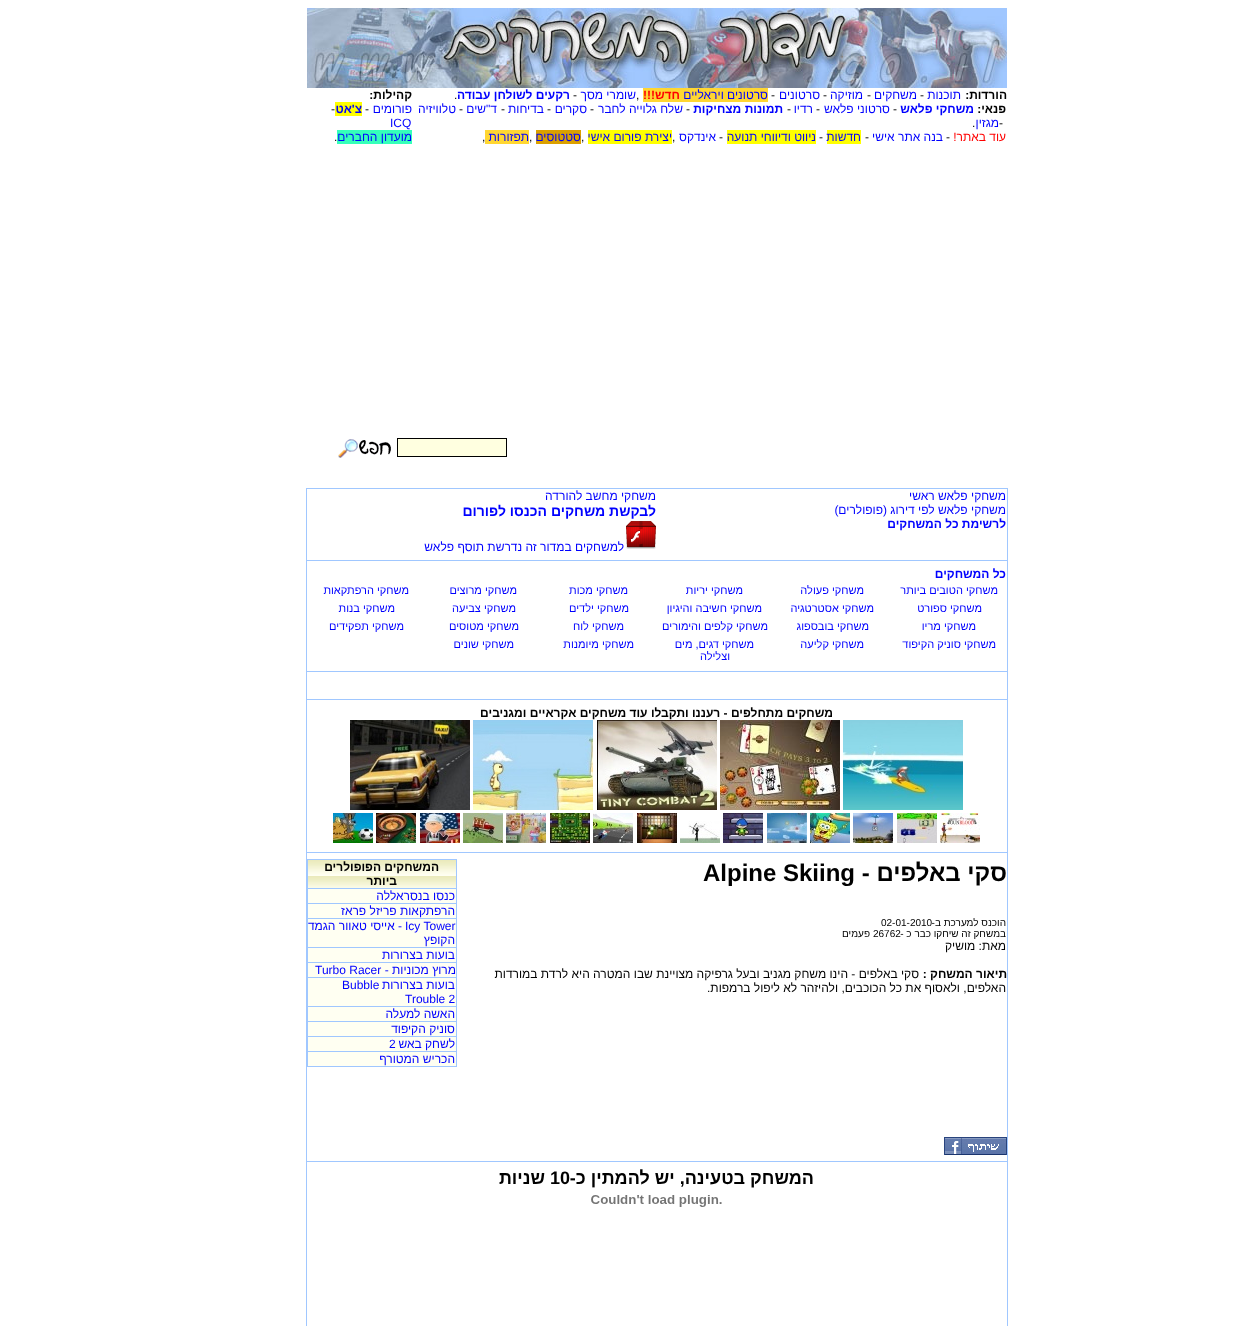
<svg xmlns="http://www.w3.org/2000/svg" width="1258" height="1326" viewBox="0 0 1258 1326">
  <style>
    .t1 { font: bold 12px Liberation Sans; direction: rtl; fill: #000; }
    .t2 { font: 12px Liberation Sans; direction: rtl; fill: #00f; }
    .t3 { font: 12px Liberation Sans; fill: #000; }
    .t4 { font: bold 12px Liberation Sans; direction: rtl; fill: #f00; }
    .t5 { font: bold 12px Liberation Sans; direction: rtl; fill: #00f; }
    .t6 { font: 12px Liberation Sans; direction: rtl; fill: #f00; }
    .t7 { font: 12px Liberation Sans; fill: #00f; }
    .t8 { font: bold 14px Liberation Sans; direction: rtl; fill: #00f; }
    .t9 { font: 11px Liberation Sans; direction: rtl; fill: #00f; }
    .t10 { font: bold 24px Liberation Sans; direction: rtl; fill: #000; }
    .t11 { font: bold 24px Liberation Sans; fill: #000; }
    .t12 { font: 10px Liberation Sans; direction: rtl; fill: #000; }
    .t13 { font: 10px Liberation Sans; fill: #000; }
    .t14 { font: 12px Liberation Sans; direction: rtl; fill: #000; }
    .t15 { font: bold 18px Liberation Sans; direction: rtl; fill: #000; }
    .t16 { font: bold 18px Liberation Sans; fill: #000; }
  </style>
  <rect width="100%" height="100%" fill="#fff"/>
  <image x="307" y="8" width="700" height="80" href="images/1.png"/>
  <text x="1007" y="99" class="t1">הורדות:</text>
  <text x="961" y="99" class="t2">תוכנות</text>
  <text x="920" y="99" class="t3">-</text>
  <text x="917" y="99" class="t2">משחקים</text>
  <text x="867" y="99" class="t3">-</text>
  <text x="863" y="99" class="t2">מוזיקה</text>
  <text x="823" y="99" class="t3">-</text>
  <text x="820" y="99" class="t2">סרטונים</text>
  <text x="771" y="99" class="t3">-</text>
  <rect x="643" y="88" width="125" height="14" fill="#ffd632"/>
  <text x="768" y="99" class="t2">סרטונים ויראליים</text>
  <text x="680" y="99" class="t4">חדש!!!</text>
  <text x="636" y="99" class="t2">שומרי מסך</text>
  <text x="573" y="99" class="t3">-</text>
  <text x="570" y="99" class="t5">רקעים לשולחן עבודה</text>
  <text x="636" y="99" class="t3">,</text>
  <text x="454" y="99" class="t3">.</text>
  <text x="1006" y="113" class="t1">פנאי:</text>
  <text x="974" y="113" class="t5">משחקי פלאש</text>
  <text x="893" y="113" class="t3">-</text>
  <text x="890" y="113" class="t2">סרטוני פלאש</text>
  <text x="816" y="113" class="t3">-</text>
  <text x="813" y="113" class="t2">רדיו</text>
  <text x="787" y="113" class="t3">-</text>
  <text x="783" y="113" class="t5">תמונות מצחיקות</text>
  <text x="686" y="113" class="t3">-</text>
  <text x="683" y="113" class="t2">שלח גלוייה לחבר</text>
  <text x="590" y="113" class="t3">-</text>
  <text x="587" y="113" class="t2">סקרים</text>
  <text x="547" y="113" class="t3">-</text>
  <text x="544" y="113" class="t2">בדיחות</text>
  <text x="501" y="113" class="t3">-</text>
  <text x="497" y="113" class="t2">ד"שים</text>
  <text x="459" y="113" class="t3">-</text>
  <text x="456" y="113" class="t2">טלוויזיה</text>
  <text x="999" y="127" class="t3">-</text>
  <text x="999" y="127" class="t2">מגזין</text>
  <text x="972" y="127" class="t3">.</text>
  <text x="1006" y="141" class="t6">עוד באתר!</text>
  <text x="946" y="141" class="t3">-</text>
  <text x="943" y="141" class="t2">בנה אתר אישי</text>
  <text x="865" y="141" class="t3">-</text>
  <rect x="827" y="130" width="34" height="14" fill="#ff0"/>
  <text x="861" y="141" class="t2">חדשות</text>
  <text x="819" y="141" class="t3">-</text>
  <rect x="727" y="130" width="89" height="14" fill="#ff0"/>
  <text x="816" y="141" class="t2">ניווט ודיווחי תנועה</text>
  <text x="719" y="141" class="t3">-</text>
  <text x="716" y="141" class="t2">אינדקס</text>
  <rect x="588" y="130" width="84" height="14" fill="#ff0"/>
  <text x="672" y="141" class="t2">יצירת פורום אישי</text>
  <rect x="536" y="130" width="45" height="14" fill="#dba000"/>
  <text x="581" y="141" class="t2">סטטוסים</text>
  <rect x="485" y="130" width="44" height="14" fill="#ffd632"/>
  <text x="529" y="141" class="t2">תפזורות</text>
  <text x="672" y="141" class="t3">,</text>
  <text x="581" y="141" class="t3">,</text>
  <text x="529" y="141" class="t3">,</text>
  <text x="482" y="141" class="t3">,</text>
  <text x="412" y="99" class="t1">קהילות:</text>
  <text x="412" y="113" class="t2">פורומים</text>
  <text x="365" y="113" class="t3">-</text>
  <rect x="335" y="102" width="27" height="14" fill="#ff0"/>
  <text x="362" y="113" class="t5">צ'אט</text>
  <text x="331" y="113" class="t3">-</text>
  <text x="390" y="127" class="t7">ICQ</text>
  <rect x="337" y="130" width="75" height="14" fill="#35ffba"/>
  <text x="412" y="141" class="t2">מועדון החברים</text>
  <text x="334" y="141" class="t3">.</text>
  <rect x="397.5" y="438.5" width="109" height="18" fill="#ffffe0" stroke="#000"/>
  <image x="338" y="439" width="53" height="19" href="images/2.png"/>
  <rect x="306" y="488" width="702" height="838" fill="#a0c7ff"/>
  <rect x="307" y="489" width="700" height="837" fill="#fff"/>
  <text x="1006" y="500" class="t2">משחקי פלאש ראשי</text>
  <text x="1006" y="514" class="t2">משחקי פלאש לפי דירוג (פופולרים)</text>
  <text x="1006" y="528" class="t5">לרשימת כל המשחקים</text>
  <text x="656" y="500" class="t2">משחקי מחשב להורדה</text>
  <text x="656" y="516" class="t8">לבקשת משחקים הכנסו לפורום</text>
  <image x="626" y="521" width="30" height="28" href="images/3.png"/>
  <text x="624" y="551" class="t2">למשחקים במדור זה נדרשת תוסף פלאש</text>
  <rect x="307" y="560" width="700" height="1" fill="#a0c7ff"/>
  <text x="1006" y="578" class="t5">כל המשחקים</text>
  <text x="998" y="594" class="t9">משחקי הטובים ביותר</text>
  <text x="864" y="594" class="t9">משחקי פעולה</text>
  <text x="743" y="594" class="t9">משחקי יריות</text>
  <text x="628" y="594" class="t9">משחקי מכות</text>
  <text x="517" y="594" class="t9">משחקי מרוצים</text>
  <text x="409" y="594" class="t9">משחקי הרפתקאות</text>
  <text x="982" y="612" class="t9">משחקי ספורט</text>
  <text x="874" y="612" class="t9">משחקי אסטרטגיה</text>
  <text x="762" y="612" class="t9">משחקי חשיבה והיגיון</text>
  <text x="629" y="612" class="t9">משחקי ילדים</text>
  <text x="516" y="612" class="t9">משחקי צביעה</text>
  <text x="395" y="612" class="t9">משחקי בנות</text>
  <text x="976" y="630" class="t9">משחקי מריו</text>
  <text x="869" y="630" class="t9">משחקי בובספוג</text>
  <text x="768" y="630" class="t9">משחקי קלפים והימורים</text>
  <text x="624" y="630" class="t9">משחקי לוח</text>
  <text x="519" y="630" class="t9">משחקי מטוסים</text>
  <text x="404" y="630" class="t9">משחקי תפקידים</text>
  <text x="996" y="648" class="t9">משחקי סוניק הקיפוד</text>
  <text x="864" y="648" class="t9">משחקי קליעה</text>
  <text x="754" y="648" class="t9">משחקי דגים, מים</text>
  <text x="730" y="660" class="t9">וצלילה</text>
  <text x="634" y="648" class="t9">משחקי מיומנות</text>
  <text x="514" y="648" class="t9">משחקי שונים</text>
  <rect x="307" y="671" width="700" height="1" fill="#a0c7ff"/>
  <rect x="307" y="699" width="700" height="1" fill="#a0c7ff"/>
  <text x="833" y="717" class="t1">משחקים מתחלפים - רעננו ותקבלו עוד משחקים אקראיים ומגניבים</text>
  <image x="843" y="720" width="120" height="90" href="images/4.png"/>
  <image x="720" y="720" width="120" height="90" href="images/5.png"/>
  <image x="597" y="720" width="120" height="90" href="images/6.png"/>
  <image x="473" y="720" width="120" height="90" href="images/7.png"/>
  <image x="350" y="720" width="120" height="90" href="images/8.png"/>
  <image x="940" y="813" width="40" height="30" href="images/9.png"/>
  <image x="897" y="813" width="40" height="30" href="images/10.png"/>
  <image x="853" y="813" width="40" height="30" href="images/11.png"/>
  <image x="810" y="813" width="40" height="30" href="images/12.png"/>
  <image x="767" y="813" width="40" height="30" href="images/13.png"/>
  <image x="723" y="813" width="40" height="30" href="images/14.png"/>
  <image x="680" y="821" width="40" height="22" href="images/15.png"/>
  <image x="637" y="813" width="40" height="30" href="images/16.png"/>
  <image x="593" y="813" width="40" height="30" href="images/17.png"/>
  <image x="550" y="813" width="40" height="30" href="images/18.png"/>
  <image x="506" y="813" width="40" height="30" href="images/19.png"/>
  <image x="463" y="813" width="40" height="30" href="images/20.png"/>
  <image x="420" y="813" width="40" height="30" href="images/21.png"/>
  <image x="376" y="813" width="40" height="30" href="images/22.png"/>
  <image x="333" y="813" width="40" height="30" href="images/23.png"/>
  <rect x="307" y="852" width="700" height="1" fill="#a0c7ff"/>
  <text x="1007" y="881" class="t10">סקי באלפים -</text>
  <text x="703" y="881" class="t11">Alpine Skiing</text>
  <text x="1006" y="926" class="t12">הוכנס למערכת ב-</text>
  <text x="881" y="926" class="t13">02-01-2010</text>
  <text x="1006" y="937" class="t12">במשחק זה שיחקו כבר כ -</text>
  <text x="873" y="937" class="t13">26762</text>
  <text x="870" y="937" class="t12">פעמים</text>
  <text x="1006" y="950" class="t14">מאת: מושיק</text>
  <text x="1007" y="978" class="t1">תיאור המשחק :</text>
  <text x="919" y="978" class="t14">סקי באלפים - הינו משחק מגניב ובעל גרפיקה מצויינת שבו המטרה היא לרדת במורדות</text>
  <text x="1006" y="992" class="t14">האלפים, ולאסוף את כל הכוכבים, ולהיזהר לא ליפול ברמפות.</text>
  <rect x="307" y="859" width="150" height="208" fill="#a0c7ff"/>
  <image x="308" y="860" width="148" height="28" href="images/24.png"/>
  <text x="439" y="871" class="t1">המשחקים הפופולרים</text>
  <text x="397" y="885" class="t1">ביותר</text>
  <rect x="308" y="889" width="148" height="14" fill="#fffff2"/>
  <text x="455" y="900" class="t2">כנסו בנסראללה</text>
  <rect x="308" y="904" width="148" height="14" fill="#fffff2"/>
  <text x="455" y="915" class="t2">הרפתקאות פריזל פראז</text>
  <rect x="308" y="919" width="148" height="28" fill="#fffff2"/>
  <text x="405" y="930" class="t7">Icy Tower</text>
  <text x="402" y="930" class="t2">- אייסי טאוור הגמד</text>
  <text x="455" y="944" class="t2">הקופץ</text>
  <rect x="308" y="948" width="148" height="14" fill="#fffff2"/>
  <text x="455" y="959" class="t2">בועות בצרורות</text>
  <rect x="308" y="963" width="148" height="14" fill="#fffff2"/>
  <text x="456" y="974" class="t2">מרוץ מכוניות -</text>
  <text x="315" y="974" class="t7">Turbo Racer</text>
  <rect x="308" y="978" width="148" height="28" fill="#fffff2"/>
  <text x="455" y="989" class="t2">בועות בצרורות</text>
  <text x="342" y="989" class="t7">Bubble</text>
  <text x="405" y="1003" class="t7">Trouble 2</text>
  <rect x="308" y="1007" width="148" height="14" fill="#fffff2"/>
  <text x="455" y="1018" class="t2">האשה למעלה</text>
  <rect x="308" y="1022" width="148" height="14" fill="#fffff2"/>
  <text x="455" y="1033" class="t2">סוניק הקיפוד</text>
  <rect x="308" y="1037" width="148" height="14" fill="#fffff2"/>
  <text x="455" y="1048" class="t2">לשחק באש</text>
  <text x="389" y="1048" class="t7">2</text>
  <rect x="308" y="1052" width="148" height="14" fill="#fffff2"/>
  <text x="455" y="1063" class="t2">הכריש המטורף</text>
  <image x="944" y="1137" width="63" height="18" href="images/25.png"/>
  <rect x="307" y="1161" width="700" height="1" fill="#a0c7ff"/>
  <text x="814" y="1184" class="t15">המשחק בטעינה, יש להמתין כ-</text>
  <text x="550" y="1184" class="t16">10</text>
  <text x="545" y="1184" class="t15">שניות</text>
  <image x="591" y="1195" width="131" height="12" href="images/26.png"/>
</svg>
